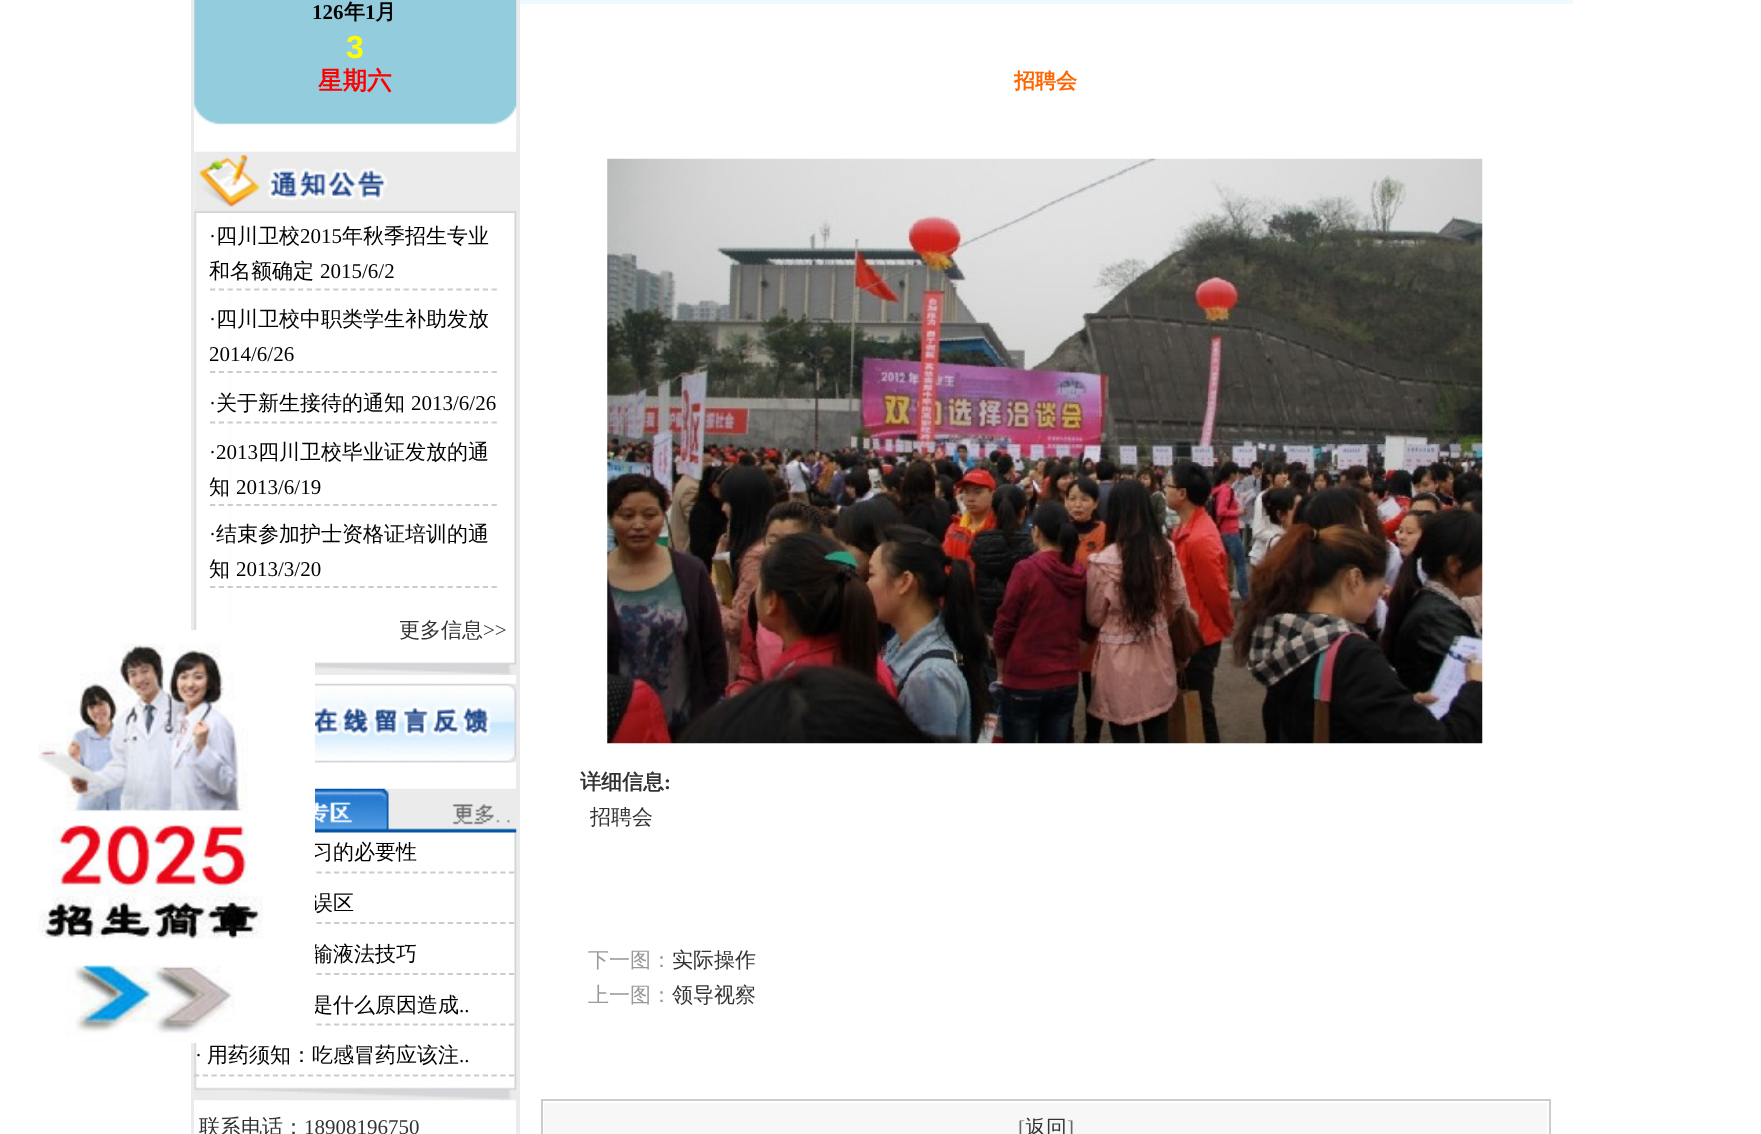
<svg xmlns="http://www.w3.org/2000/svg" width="1761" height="1134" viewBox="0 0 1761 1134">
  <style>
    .t1 { font: 500 21px WenQuanYi Zen Hei; fill: #000; }
    .t2 { font: bold 21px Liberation Serif; fill: #000; }
    .t3 { font: bold 21px WenQuanYi Zen Hei; fill: #000; }
    .t4 { font: bold 32px Liberation Sans; fill: #fcff00; }
    .t5 { font: bold 24.5px WenQuanYi Zen Hei; fill: #f00; }
    .t6 { font: 21px Liberation Serif; fill: #000; }
    .t7 { font: 500 21px WenQuanYi Zen Hei; fill: #333; }
    .t8 { font: 21px Liberation Serif; fill: #333; }
    .t9 { font: bold 21px WenQuanYi Zen Hei; fill: #f60; }
    .t10 { font: bold 21px WenQuanYi Zen Hei; fill: #333; }
    .t11 { font: bold 21px Liberation Serif; fill: #333; }
    .t12 { font: 500 21px WenQuanYi Zen Hei; fill: #999; }
    .t13 { font: 21px Liberation Serif; fill: #666; }
  </style>
  <rect width="100%" height="100%" fill="#fff"/>
  <rect x="191" y="0" width="329" height="1134" fill="#ebebed"/>
  <rect x="194" y="0" width="322" height="1134" fill="#fff"/>
  <image x="194" y="213" width="323" height="448" href="images/4.png"/>
  <image x="194" y="832" width="323" height="255" href="images/8.png"/>
  <path d="M194 872.5H514.5" fill="none" stroke="#ccc" stroke-width="1.8" stroke-dasharray="5.25 3.5"/>
  <text x="312" y="859" class="t1">习的必要性</text>
  <path d="M194 923H514.5" fill="none" stroke="#ccc" stroke-width="1.8" stroke-dasharray="5.25 3.5"/>
  <text x="312" y="910" class="t1">误区</text>
  <path d="M194 974H514.5" fill="none" stroke="#ccc" stroke-width="1.8" stroke-dasharray="5.25 3.5"/>
  <text x="312" y="961" class="t1">输液法技巧</text>
  <path d="M194 1024.5H514.5" fill="none" stroke="#ccc" stroke-width="1.8" stroke-dasharray="5.25 3.5"/>
  <text x="312" y="1012" class="t1">是什么原因造成</text>
  <image x="38" y="630" width="277" height="413" href="images/1.png"/>
  <image x="194" y="0" width="323" height="143" href="images/2.png"/>
  <text x="312" y="19" class="t2">126</text>
  <text x="344" y="19" class="t3">年</text>
  <text x="365" y="19" class="t2">1</text>
  <text x="375" y="19" class="t3">月</text>
  <text x="346" y="58" class="t4">3</text>
  <text x="318" y="89" class="t5">星期六</text>
  <image x="194" y="151" width="323" height="62" href="images/3.png"/>
  <path d="M210 289.5H497" fill="none" stroke="#ccc" stroke-width="1.8" stroke-dasharray="5.25 3.55"/>
  <text x="209" y="243" class="t6">·</text>
  <text x="216" y="243" class="t1">四川卫校</text>
  <text x="300" y="243" class="t6">2015</text>
  <text x="342" y="243" class="t1">年秋季招生专业</text>
  <text x="209" y="278" class="t1">和名额确定</text>
  <text x="320" y="278" class="t6">2015/6/2</text>
  <path d="M210 372H497" fill="none" stroke="#ccc" stroke-width="1.8" stroke-dasharray="5.25 3.55"/>
  <text x="209" y="326" class="t6">·</text>
  <text x="216" y="326" class="t1">四川卫校中职类学生补助发放</text>
  <text x="209" y="361" class="t6">2014/6/26</text>
  <path d="M210 422.5H497" fill="none" stroke="#ccc" stroke-width="1.8" stroke-dasharray="5.25 3.55"/>
  <text x="209" y="410" class="t6">·</text>
  <text x="216" y="410" class="t1">关于新生接待的通知</text>
  <text x="411" y="410" class="t6">2013/6/26</text>
  <path d="M210 505H497" fill="none" stroke="#ccc" stroke-width="1.8" stroke-dasharray="5.25 3.55"/>
  <text x="209" y="459" class="t6">·2013</text>
  <text x="258" y="459" class="t1">四川卫校毕业证发放的通</text>
  <text x="209" y="494" class="t1">知</text>
  <text x="236" y="494" class="t6">2013/6/19</text>
  <path d="M210 587H497" fill="none" stroke="#ccc" stroke-width="1.8" stroke-dasharray="5.25 3.55"/>
  <text x="209" y="541" class="t6">·</text>
  <text x="216" y="541" class="t1">结束参加护士资格证培训的通</text>
  <text x="209" y="576" class="t1">知</text>
  <text x="236" y="576" class="t6">2013/3/20</text>
  <text x="399" y="637" class="t7">更多信息</text>
  <text x="483" y="637" class="t8">&gt;&gt;</text>
  <image x="315" y="661" width="202" height="14" href="images/5.png"/>
  <image x="315" y="683" width="202" height="80" href="images/6.png"/>
  <image x="315" y="788" width="202" height="45" href="images/7.png"/>
  <text x="459" y="1012" class="t6">..</text>
  <path d="M194 1075.5H514.5" fill="none" stroke="#ccc" stroke-width="1.8" stroke-dasharray="5.25 3.5"/>
  <text x="195" y="1062" class="t6">·</text>
  <text x="207" y="1062" class="t1">用药须知：吃感冒药应该注</text>
  <text x="459" y="1062" class="t6">..</text>
  <image x="194" y="1086" width="323" height="15" href="images/9.png"/>
  <text x="199" y="1134" class="t7">联系电话：</text>
  <text x="304" y="1134" class="t8">18908196750</text>
  <rect x="520" y="0" width="1053" height="4" fill="#eefaff"/>
  <text x="1014" y="88" class="t9">招聘会</text>
  <image x="607" y="158" width="876" height="586" href="images/10.png"/>
  <text x="580" y="789" class="t10">详细信息</text>
  <text x="664" y="789" class="t11">:</text>
  <text x="590" y="824" class="t7">招聘会</text>
  <text x="588" y="967" class="t12">下一图：</text>
  <text x="672" y="967" class="t7">实际操作</text>
  <text x="588" y="1002" class="t12">上一图：</text>
  <text x="672" y="1002" class="t7">领导视察</text>
  <rect x="541" y="1099" width="1010" height="35" fill="#ccc"/>
  <rect x="543" y="1101" width="1006" height="33" fill="#fff"/>
  <rect x="544" y="1103" width="1003" height="31" fill="#f7f7f7"/>
  <text x="1018" y="1135" class="t13">[</text>
  <text x="1025" y="1135" class="t7">返回</text>
  <text x="1067" y="1135" class="t13">]</text>
</svg>
